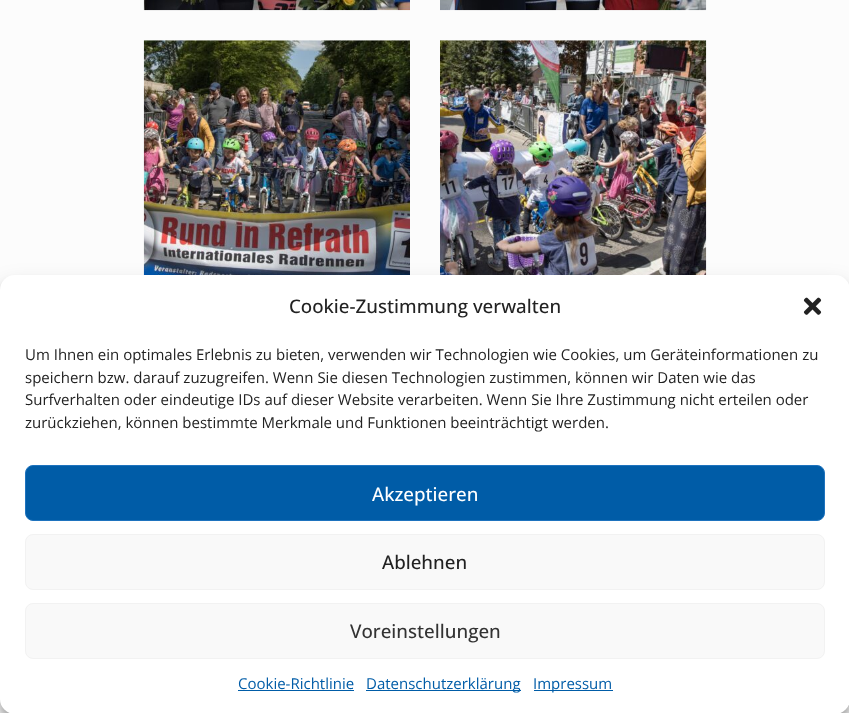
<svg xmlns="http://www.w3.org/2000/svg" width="849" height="713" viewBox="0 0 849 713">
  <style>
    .t1 { font: 500 18.75px Open Sans; fill: #222; }
    .t2 { font: 15px Open Sans; fill: #222; }
    .t3 { font: 500 18.75px Open Sans; fill: #fff; }
    .t4 { font: 500 18.75px Open Sans; fill: #333; }
    .t5 { font: 15px Open Sans; fill: #005ca7; }
  </style>
  <rect width="100%" height="100%" fill="#fcfcfc"/>
  <image x="143" y="0" width="267" height="11" href="images/1.png"/>
  <image x="440" y="0" width="267" height="11" href="images/2.png"/>
  <image x="143" y="40" width="267" height="235" href="images/3.png"/>
  <image x="440" y="40" width="267" height="235" href="images/4.png"/>
  <rect x="0" y="283" width="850" height="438" rx="15" fill="#0000003b" filter="blur(4px)"/>
  <rect x="0" y="288" width="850" height="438" rx="15" fill="#00000030" filter="blur(12.5px)"/>
  <rect x="0" y="275" width="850" height="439" rx="15" fill="#fff"/>
  <text x="289" y="313" class="t1">Cookie-Zustimmung verwalten</text>
  <image x="803" y="297" width="19" height="18" href="images/5.png"/>
  <text x="25" y="360" class="t2">Um Ihnen ein optimales Erlebnis zu bieten, verwenden wir Technologien wie Cookies, um Geräteinformationen zu</text>
  <text x="25" y="383" class="t2">speichern bzw. darauf zuzugreifen. Wenn Sie diesen Technologien zustimmen, können wir Daten wie das</text>
  <text x="25" y="405" class="t2">Surfverhalten oder eindeutige IDs auf dieser Website verarbeiten. Wenn Sie Ihre Zustimmung nicht erteilen oder</text>
  <text x="25" y="428" class="t2">zurückziehen, können bestimmte Merkmale und Funktionen beeinträchtigt werden.</text>
  <rect x="25.5" y="465.5" width="799" height="55" rx="7.5" fill="#005ca7" stroke="#1e73be"/>
  <text x="372" y="501" class="t3">Akzeptieren</text>
  <rect x="25.5" y="534.5" width="799" height="55" rx="7.5" fill="#f9f9f9" stroke="#f2f2f2"/>
  <text x="382" y="569" class="t1">Ablehnen</text>
  <rect x="25.5" y="603.5" width="799" height="55" rx="7.5" fill="#f9f9f9" stroke="#f2f2f2"/>
  <text x="350" y="638" class="t4">Voreinstellungen</text>
  <text x="238" y="689" class="t5">Cookie-Richtlinie</text>
  <rect x="238" y="690" width="116" height="1" fill="#005ca7"/>
  <rect x="366" y="690" width="155" height="1" fill="#005ca7"/>
  <text x="366" y="689" class="t5">Datenschutzerklärung</text>
  <rect x="534" y="690" width="79" height="1" fill="#005ca7"/>
  <text x="533" y="689" class="t5">Impressum</text>
</svg>
